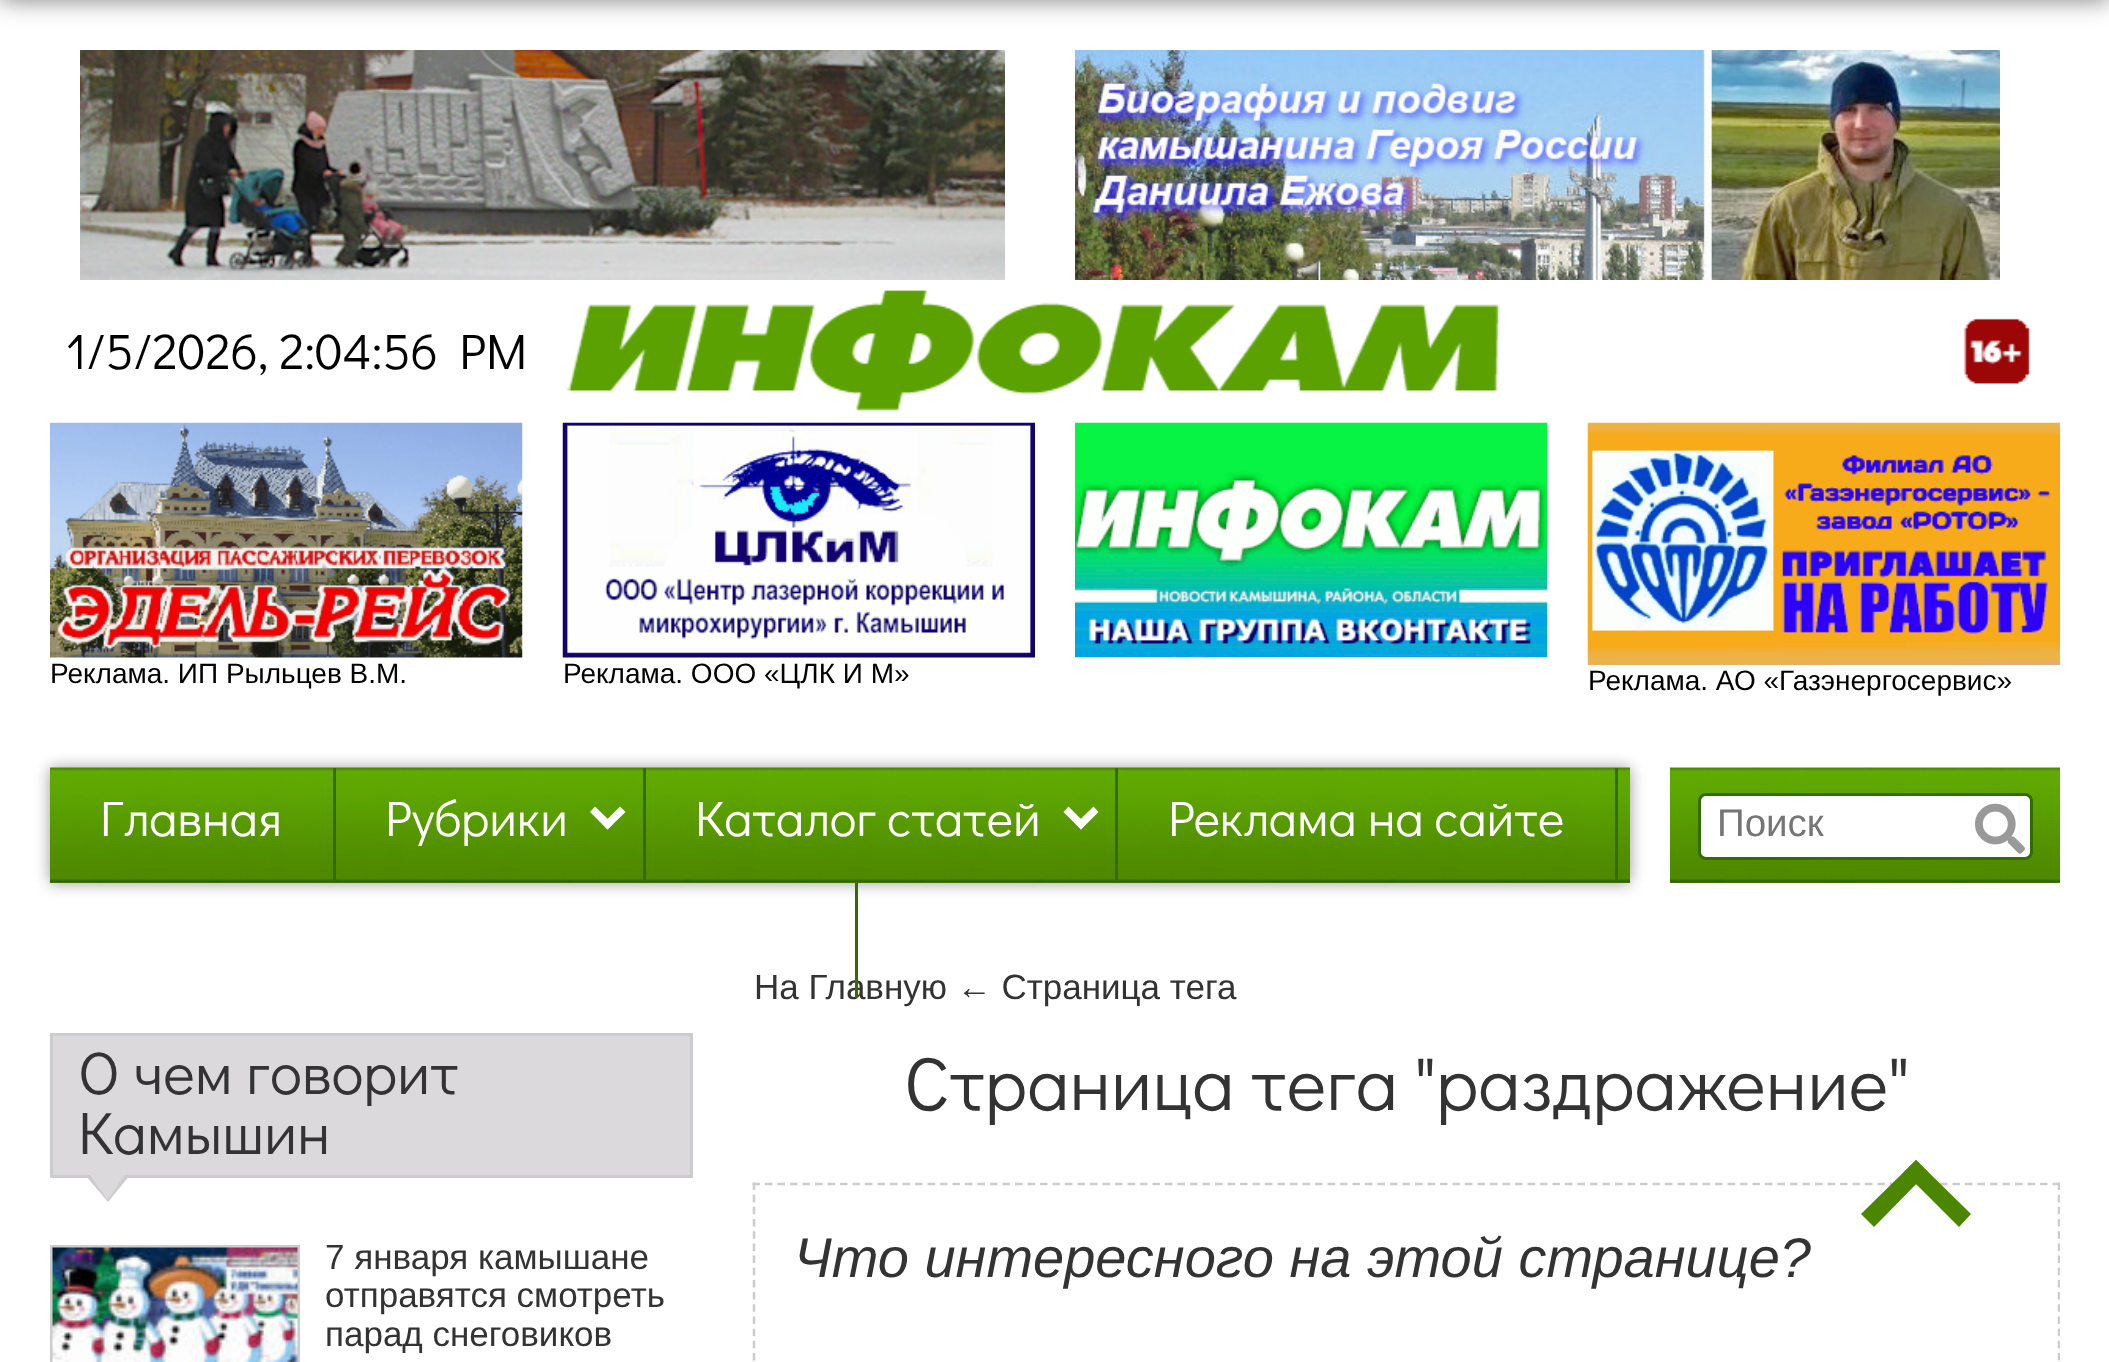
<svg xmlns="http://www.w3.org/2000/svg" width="2109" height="1362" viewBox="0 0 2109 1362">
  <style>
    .t1 { font: 50px Didact Gothic; fill: #000; }
    .t2 { font: 28px Liberation Sans; fill: #000; }
    .t3 { font: 50px Didact Gothic; fill: #fff; }
    .t4 { font: 35px Liberation Sans; fill: #333; }
    .t5 { font: 38.5px Liberation Sans; fill: #757575; }
    .t6 { font: 60px Didact Gothic; fill: #333; }
    .t7 { font: 75px Didact Gothic; fill: #333; }
    .t8 { font: italic 56px Liberation Sans; fill: #333; }
  </style>
  <defs>
    <clipPath id="clip1"><rect x="50" y="970" width="2010" height="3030"/></clipPath>
  </defs>
  <rect width="100%" height="100%" fill="#fff"/>
  <rect x="0" y="-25" width="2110" height="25" fill="#00000080" filter="blur(12.5px)"/>
  <image x="80" y="50" width="925" height="230" href="images/1.png"/>
  <image x="1075" y="50" width="925" height="230" href="images/2.png"/>
  <text x="66" y="369" class="t1">1/5/2026, 2:04:56 PM</text>
  <image x="566" y="290" width="1464" height="121" href="images/3.png"/>
  <image x="1075" y="422" width="473" height="236" href="images/4.png"/>
  <image x="50" y="422" width="473" height="236" href="images/5.png"/>
  <text x="50" y="683" class="t2">Реклама. ИП Рыльцев В.М.</text>
  <image x="562" y="422" width="473" height="236" href="images/6.png"/>
  <text x="563" y="683" class="t2">Реклама. ООО «ЦЛК И М»</text>
  <image x="1587" y="422" width="473" height="243" href="images/7.png"/>
  <text x="1588" y="690" class="t2">Реклама. АО «Газэнергосервис»</text>
  <rect x="50" y="768" width="1580" height="115" fill="#00000066" filter="blur(7.5px)"/>
  <rect x="50" y="882" width="1580" height="1" fill="#4c8601"/>
  <image x="50" y="767" width="1580" height="116" href="images/8.png"/>
  <rect x="333" y="768" width="3" height="115" fill="#336c02"/>
  <text x="100" y="836" class="t3">Главная</text>
  <rect x="643" y="768" width="3" height="115" fill="#336c02"/>
  <text x="385" y="836" class="t3">Рубрики</text>
  <path d="M625.5 812L607.5 829.5L602.5 824L620 806.5Z" fill="#fff"/>
  <path d="M613 824L607.5 829.5L590 812L595 806.5Z" fill="#fff"/>
  <rect x="1115" y="768" width="3" height="115" fill="#336c02"/>
  <text x="695" y="836" class="t3">Каталог статей</text>
  <path d="M1098.5 812L1081 829.5L1075.5 824L1093.5 806.5Z" fill="#fff"/>
  <path d="M1086 824L1081 829.5L1063.5 812L1068.5 806.5Z" fill="#fff"/>
  <rect x="1615" y="768" width="3" height="115" fill="#336c02"/>
  <text x="1168" y="836" class="t3">Реклама на сайте</text>
  <text x="754" y="999" class="t4">На Главную ← Страница тега</text>
  <rect x="855" y="883" width="3" height="115" fill="#336c02"/>
  <rect x="1670" y="882" width="390" height="1" fill="#4c8601"/>
  <image x="1670" y="767" width="390" height="116" href="images/9.png"/>
  <rect x="1699.5" y="794.5" width="332" height="64" rx="6.5" fill="#fff" stroke="#336c02" stroke-width="3"/>
  <text x="1717" y="836" class="t5">Поиск</text>
  <image x="1975" y="803" width="50" height="51" href="images/10.png"/>
  <rect x="51.5" y="1034.5" width="640" height="142" fill="#dbd9dc" stroke="#ccccce" stroke-width="3"/>
  <text x="78" y="1094" class="t6">О чем говорит</text>
  <text x="78" y="1154" class="t6">Камышин</text>
  <path d="M85 1175H130L108 1202Z" fill="#ccccce"/>
  <path d="M90 1175H125L107.5 1200Z" fill="#dbd9dc"/>
  <rect x="51.5" y="1246.5" width="247" height="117" fill="none" stroke="#ccc" stroke-width="3"/>
  <image x="52" y="1247" width="246" height="115" href="images/11.png"/>
  <text x="325" y="1269" class="t4">7 января камышане</text>
  <text x="325" y="1307" class="t4">отправятся смотреть</text>
  <text x="325" y="1346" class="t4">парад снеговиков</text>
  <text x="904" y="1110" class="t7">Страница тега "раздражение"</text>
  <path d="M752.5 1184H2060" fill="none" stroke="#ccc" stroke-width="2.5" stroke-dasharray="7.5 5"/>
  <g clip-path="url(#clip1)">
    <path d="M2059 1182.5V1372.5" fill="none" stroke="#ccc" stroke-width="2.5" stroke-dasharray="7.5 4.68"/>
  </g>
  <path d="M754 1182.5V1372.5" fill="none" stroke="#ccc" stroke-width="2.5" stroke-dasharray="7.5 4.68"/>
  <text x="794" y="1277" class="t8">Что интересного на этой странице?</text>
  <path d="M1928 1172L1874 1227L1861 1214L1916 1160Z" fill="#4c8601"/>
  <path d="M1971 1214L1959 1227L1904 1172L1916 1160Z" fill="#4c8601"/>
</svg>
